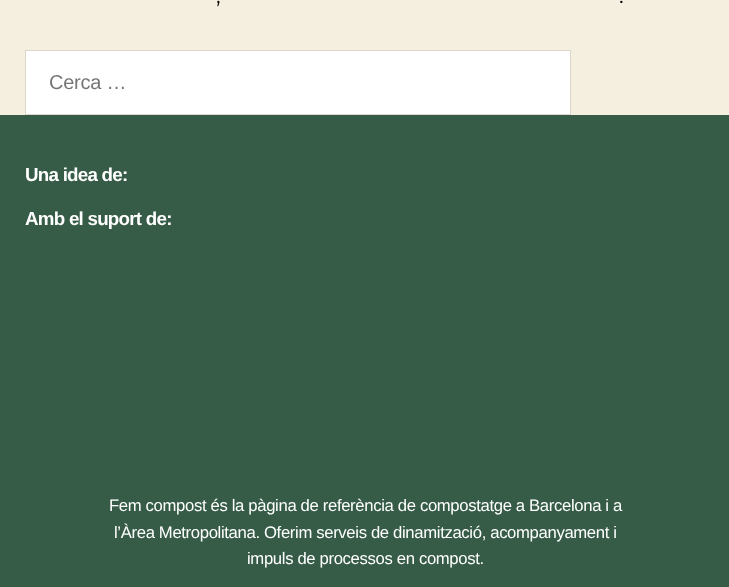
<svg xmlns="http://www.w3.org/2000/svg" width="729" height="587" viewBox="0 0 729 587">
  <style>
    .t1 { font: 22px Montserrat; letter-spacing: -0.35px; fill: #000; }
    .t2 { font: 20px Liberation Sans; letter-spacing: -0.25px; fill: #757575; }
    .t3 { font: bold 18.75px Liberation Sans; letter-spacing: -0.75px; fill: #fff; }
    .t4 { font: 16.7px Liberation Sans; letter-spacing: -0.35px; fill: #fff; }
  </style>
  <rect width="100%" height="100%" fill="#f5efe0"/>
  <text x="216" y="3" class="t1">,</text>
  <text x="619" y="3" class="t1">.</text>
  <rect x="25.5" y="50.5" width="545" height="64" fill="#fff" stroke="#dcd7ca"/>
  <text x="49" y="89" class="t2">Cerca …</text>
  <rect x="0" y="115" width="729" height="472" fill="#365c47"/>
  <text x="25" y="181" class="t3">Una idea de:</text>
  <text x="25" y="225" class="t3">Amb el suport de:</text>
  <text x="109" y="511" class="t4">Fem compost és la pàgina de referència de compostatge a Barcelona i a</text>
  <text x="114" y="538" class="t4">l’Àrea Metropolitana. Oferim serveis de dinamització, acompanyament i</text>
  <text x="247" y="564" class="t4">impuls de processos en compost.</text>
</svg>
